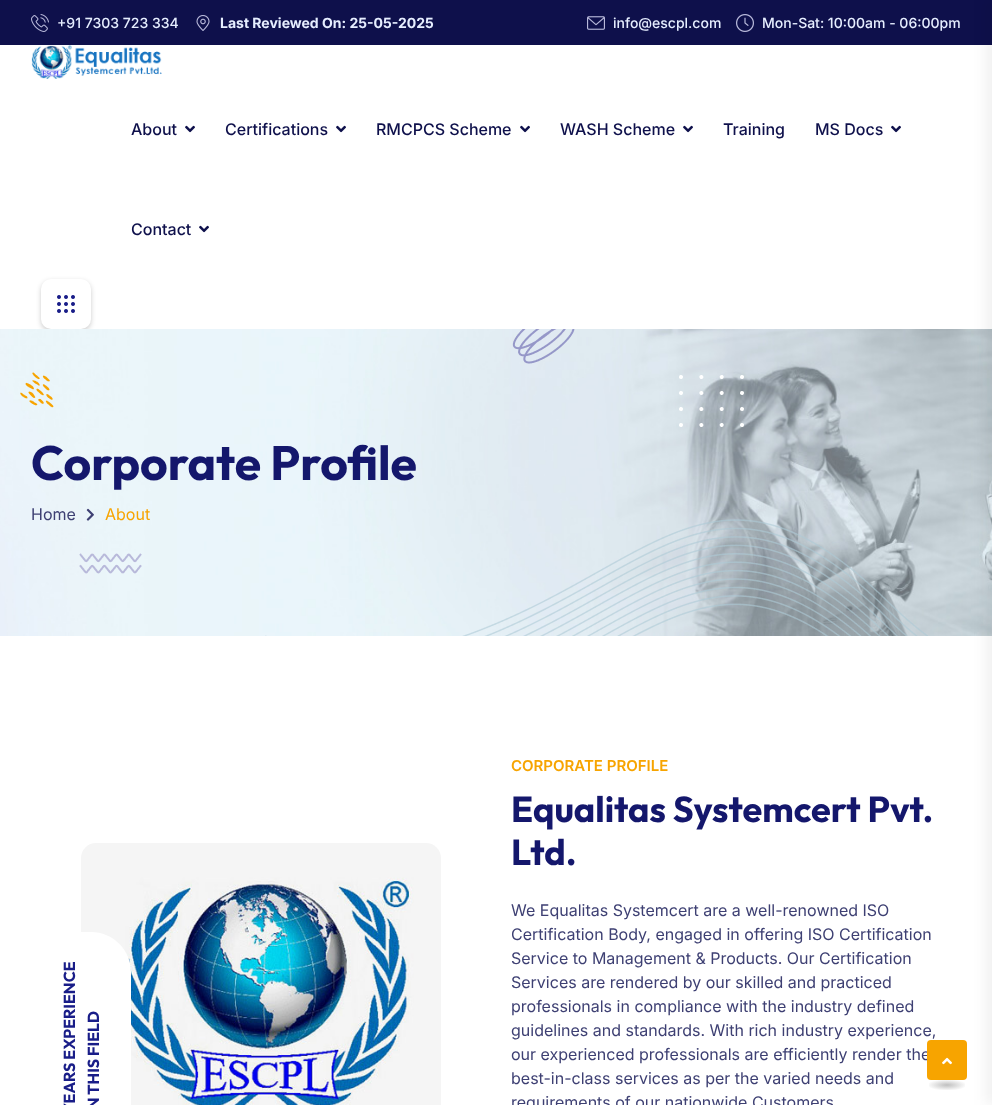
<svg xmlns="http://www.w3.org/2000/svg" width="992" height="1105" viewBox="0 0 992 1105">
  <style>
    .t1 { font: 500 14px Inter; fill: #e6eeff; }
    .t2 { font: bold 14px Inter; fill: #e6eeff; }
    .t3 { font: 500 16px Inter; fill: #0e104b; }
    .t4 { font: 16px Inter; fill: #3e4073; }
    .t5 { font: bold 48px Outfit; fill: #14176c; }
    .t6 { font: 16px Inter; fill: #f7a400; }
    .t7 { font: bold 16px Outfit; fill: #191d88; }
    .t8 { font: 600 15px Inter; fill: #f7a400; }
    .t9 { font: bold 36px Outfit; fill: #14176c; }
  </style>
  <defs>
    <radialGradient id="g1" gradientUnits="userSpaceOnUse" cx="0" cy="0" r="1" gradientTransform="matrix(25 0 0 7.1 947 1085)"><stop offset="0" stop-color="#bfbfbf"/><stop offset="0.8" stop-color="#fff"/></radialGradient>
  </defs>
  <rect width="100%" height="100%" fill="#fff"/>
  <rect x="0" y="0" width="992" height="45" fill="#0e104b"/>
  <image x="31" y="14" width="18" height="18" href="images/1.png"/>
  <text x="57" y="28" class="t1">+91 7303 723 334</text>
  <image x="196" y="15" width="14" height="16" href="images/2.png"/>
  <text x="220" y="28" class="t2">Last Reviewed On: 25-05-2025</text>
  <image x="587" y="16" width="18" height="14" href="images/3.png"/>
  <text x="613" y="28" class="t1">info@escpl.com</text>
  <image x="736" y="14" width="18" height="18" href="images/4.png"/>
  <text x="762" y="28" class="t1">Mon-Sat: 10:00am - 06:00pm</text>
  <image x="31" y="45" width="131" height="34" href="images/5.png"/>
  <text x="131" y="135" class="t3">About</text>
  <image x="185" y="125" width="10" height="8" href="images/6.png"/>
  <text x="225" y="135" class="t3">Certifications</text>
  <image x="336" y="125" width="10" height="8" href="images/6.png"/>
  <text x="376" y="135" class="t3">RMCPCS Scheme</text>
  <image x="520" y="125" width="10" height="8" href="images/6.png"/>
  <text x="560" y="135" class="t3">WASH Scheme</text>
  <image x="683" y="125" width="10" height="8" href="images/6.png"/>
  <text x="723" y="135" class="t3">Training</text>
  <text x="815" y="135" class="t3">MS Docs</text>
  <image x="891" y="125" width="10" height="8" href="images/6.png"/>
  <text x="131" y="235" class="t3">Contact</text>
  <image x="199" y="225" width="10" height="8" href="images/6.png"/>
  <rect x="41" y="281" width="50" height="50" rx="10" fill="#00000033" filter="blur(2.5px)"/>
  <rect x="41" y="279" width="50" height="50" rx="10" fill="#fff"/>
  <image x="57" y="295" width="18" height="18" href="images/7.png"/>
  <image x="0" y="329" width="992" height="307" href="images/8.png"/>
  <text x="511" y="1060" class="t4">our experienced professionals are efficiently render the</text>
  <rect x="927" y="1040" width="40" height="40" rx="4" fill="#f7a400"/>
  <rect x="929" y="1080" width="36" height="10" fill="url(#g1)"/>
  <rect x="986" y="0" width="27" height="1105" fill="#0000000f" filter="blur(7px)"/>
  <image x="512" y="329" width="63" height="35" href="images/9.png"/>
  <image x="20" y="372" width="34" height="36" href="images/10.png"/>
  <image x="679" y="375" width="65" height="52" href="images/11.png"/>
  <image x="79" y="553" width="63" height="21" href="images/12.png"/>
  <image x="265" y="519" width="663" height="117" href="images/13.png"/>
  <text x="31" y="480" class="t5">Corporate Profile</text>
  <text x="31" y="520" class="t4">Home</text>
  <image x="86" y="508" width="8" height="13" href="images/14.png"/>
  <text x="105" y="520" class="t6">About</text>
  <image x="81" y="843" width="360" height="262" href="images/15.png"/>
  <path d="M31 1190V972C31 950 49 932 71 932H91C113 932 131 950 131 972V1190C131 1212 113 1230 91 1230H71C49 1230 31 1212 31 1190Z" fill="#fff"/>
  <text x="75" y="1114" transform="rotate(-90 75 1114)" class="t7">YEARS EXPERIENCE</text>
  <text x="99" y="1114" transform="rotate(-90 99 1114)" class="t7">IN THIS FIELD</text>
  <text x="511" y="771" class="t8">CORPORATE PROFILE</text>
  <text x="511" y="822" class="t9">Equalitas Systemcert Pvt.</text>
  <text x="511" y="865" class="t9">Ltd.</text>
  <text x="511" y="916" class="t4">We Equalitas Systemcert are a well-renowned ISO</text>
  <text x="511" y="940" class="t4">Certification Body, engaged in offering ISO Certification</text>
  <text x="511" y="964" class="t4">Service to Management &amp; Products. Our Certification</text>
  <text x="511" y="988" class="t4">Services are rendered by our skilled and practiced</text>
  <text x="511" y="1012" class="t4">professionals in compliance with the industry defined</text>
  <text x="511" y="1036" class="t4">guidelines and standards. With rich industry experience,</text>
  <text x="511" y="1084" class="t4">best-in-class services as per the varied needs and</text>
  <text x="511" y="1108" class="t4">requirements of our nationwide Customers</text>
  <image x="942" y="1057" width="10" height="8" href="images/16.png"/>
</svg>
